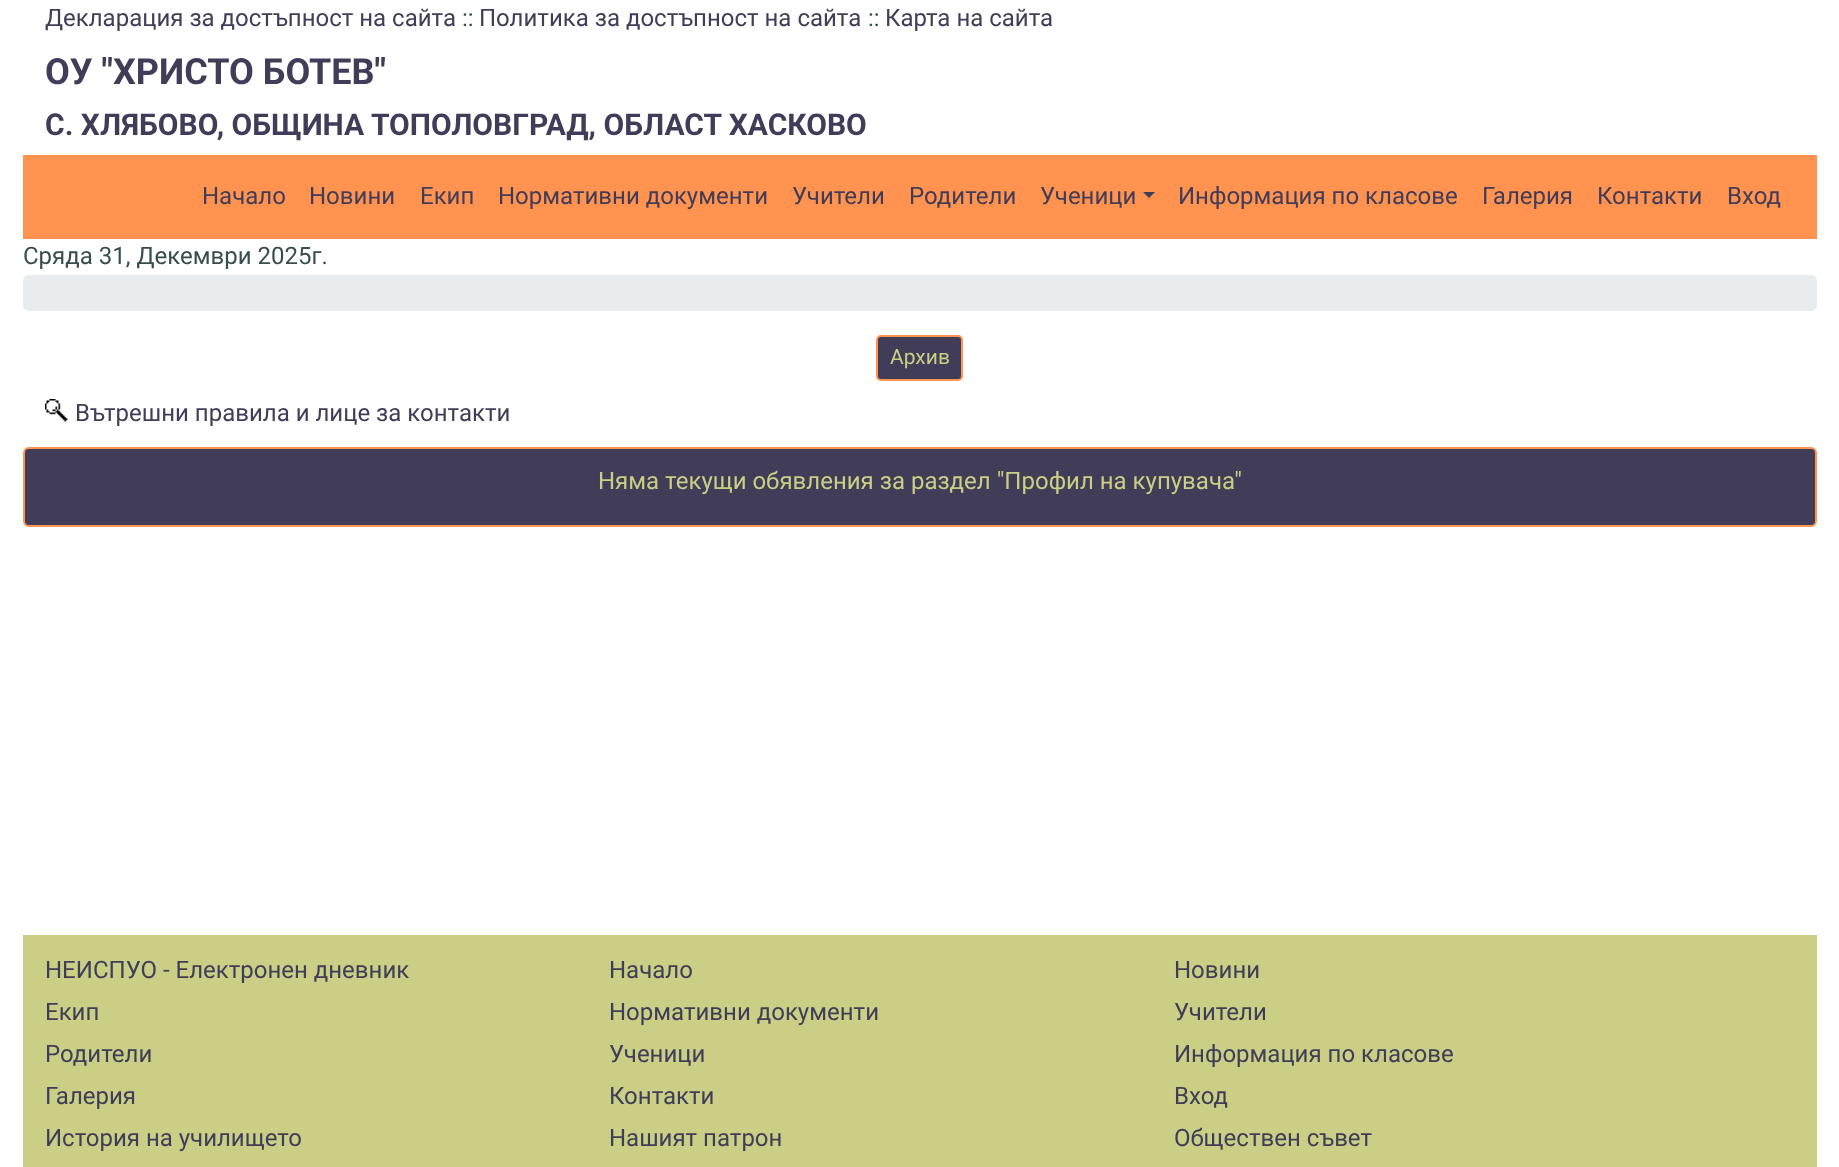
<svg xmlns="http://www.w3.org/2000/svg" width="1839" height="1167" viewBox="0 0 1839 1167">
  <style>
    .t1 { font: 24px Roboto; fill: #413c58; }
    .t2 { font: 24px Roboto; fill: #384d4d; }
    .t3 { font: bold 36px Roboto; fill: #413c58; }
    .t4 { font: bold 30px Roboto; fill: #413c58; }
    .t5 { font: 21px Roboto; fill: #cacf85; }
    .t6 { font: 24px Roboto; fill: #cacf85; }
  </style>
  <rect width="100%" height="100%" fill="#fff"/>
  <text x="45" y="26" class="t1">Декларация за достъпност на сайта</text>
  <text x="462" y="26" class="t2">::</text>
  <text x="479" y="26" class="t1">Политика за достъпност на сайта</text>
  <text x="868" y="26" class="t2">::</text>
  <text x="885" y="26" class="t1">Карта на сайта</text>
  <text x="45" y="84" class="t3">ОУ "ХРИСТО БОТЕВ"</text>
  <text x="45" y="135" class="t4">С. ХЛЯБОВО, ОБЩИНА ТОПОЛОВГРАД, ОБЛАСТ ХАСКОВО</text>
  <rect x="23" y="155" width="1794" height="84" fill="#ff934f"/>
  <text x="202" y="204" class="t1">Начало</text>
  <text x="309" y="204" class="t1">Новини</text>
  <text x="420" y="204" class="t1">Екип</text>
  <text x="498" y="204" class="t1">Нормативни документи</text>
  <text x="792" y="204" class="t1">Учители</text>
  <text x="909" y="204" class="t1">Родители</text>
  <text x="1040" y="204" class="t1">Ученици</text>
  <path d="M1143 192H1155L1149 198Z" fill="#413c58"/>
  <text x="1178" y="204" class="t1">Информация по класове</text>
  <text x="1482" y="204" class="t1">Галерия</text>
  <text x="1597" y="204" class="t1">Контакти</text>
  <text x="1727" y="204" class="t1">Вход</text>
  <text x="23" y="264" class="t2">Сряда 31, Декември 2025г.</text>
  <rect x="23" y="275" width="1794" height="36" rx="6" fill="#e9ecef"/>
  <rect x="877" y="336" width="85" height="44" rx="4" fill="#413c58" stroke="#ff934f" stroke-width="2"/>
  <text x="890" y="364" class="t5">Архив</text>
  <image x="45" y="399" width="23" height="23" href="images/1.png"/>
  <text x="75" y="421" class="t1">Вътрешни правила и лице за контакти</text>
  <rect x="24" y="448" width="1792" height="78" rx="5" fill="#413c58" stroke="#ff934f" stroke-width="2"/>
  <text x="598" y="489" class="t6">Няма текущи обявления за раздел "Профил на купувача"</text>
  <rect x="23" y="935" width="1794" height="232" fill="#cacf85"/>
  <text x="45" y="978" class="t1">НЕИСПУО - Електронен дневник</text>
  <text x="609" y="978" class="t1">Начало</text>
  <text x="1174" y="978" class="t1">Новини</text>
  <text x="45" y="1020" class="t1">Екип</text>
  <text x="609" y="1020" class="t1">Нормативни документи</text>
  <text x="1174" y="1020" class="t1">Учители</text>
  <text x="45" y="1062" class="t1">Родители</text>
  <text x="609" y="1062" class="t1">Ученици</text>
  <text x="1174" y="1062" class="t1">Информация по класове</text>
  <text x="45" y="1104" class="t1">Галерия</text>
  <text x="609" y="1104" class="t1">Контакти</text>
  <text x="1174" y="1104" class="t1">Вход</text>
  <text x="45" y="1146" class="t1">История на училището</text>
  <text x="609" y="1146" class="t1">Нашият патрон</text>
  <text x="1174" y="1146" class="t1">Обществен съвет</text>
</svg>
